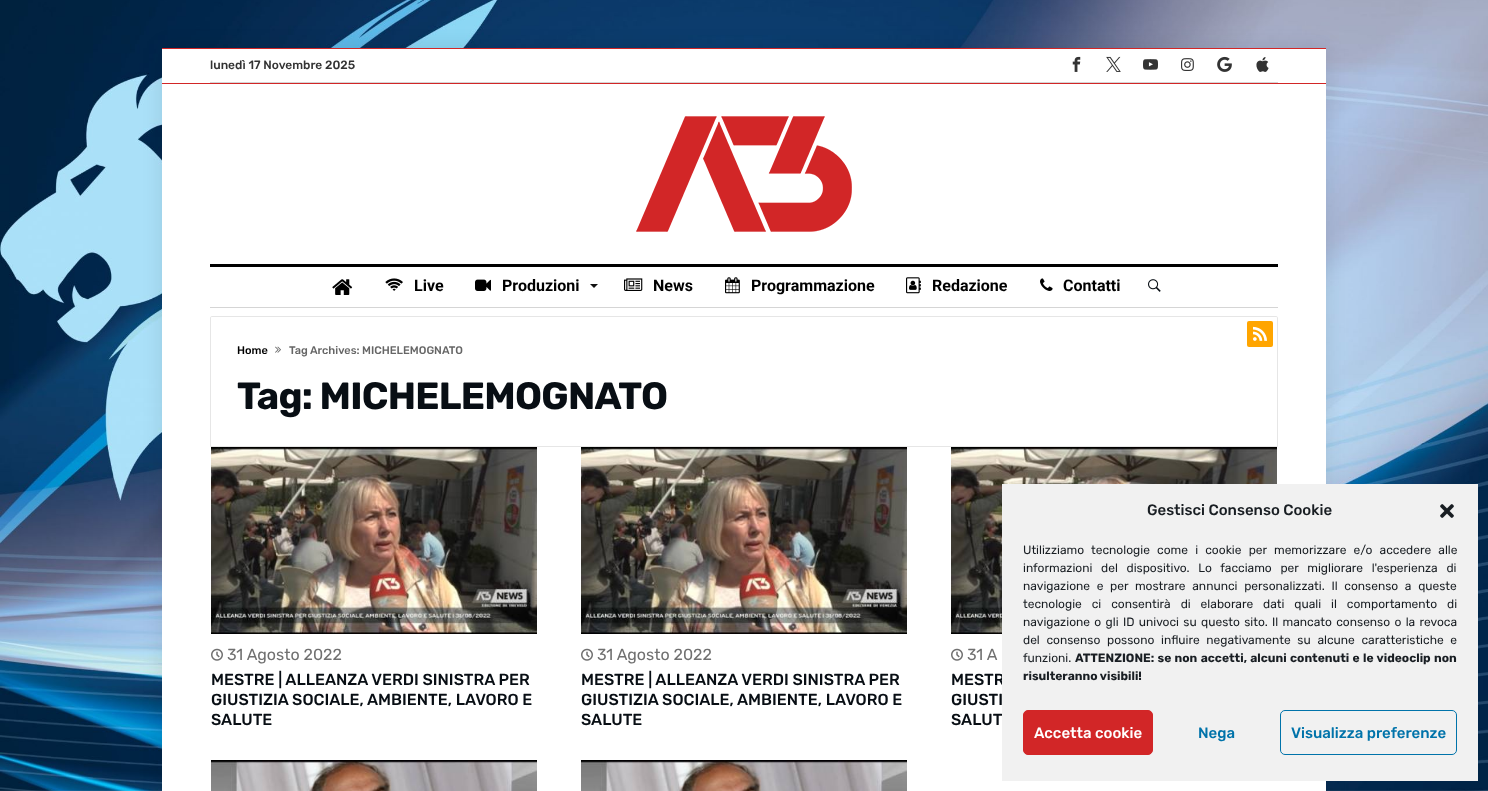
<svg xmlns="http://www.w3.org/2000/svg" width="1488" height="791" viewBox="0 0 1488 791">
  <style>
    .t1 { font: 500 12px Rubik; fill: #333; }
    .t2 { font: bold 16px Roboto; fill: #000; }
    .t3 { font: 500 11px Rubik; fill: #000; }
    .t4 { font: 500 11px Rubik; fill: #666; }
    .t5 { font: bold 38px Rubik; letter-spacing: -0.75px; fill: #080e14; }
    .t6 { font: 16px Rubik; fill: #707070; }
    .t7 { font: 500 16px Rubik; fill: #080e14; }
    .t8 { font: 500 15px Rubik; fill: #191e23; }
    .t9 { font: 12px Rubik; fill: #191e23; }
    .t10 { font: bold 12px Rubik; fill: #191e23; }
    .t11 { font: 500 15px Rubik; fill: #fff; }
    .t12 { font: 500 15px Rubik; fill: #0073aa; }
  </style>
  <rect width="100%" height="100%" fill="#fff"/>
  <image x="0" y="0" width="1488" height="791" href="images/1.png"/>
  <rect x="162" y="48" width="1164" height="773" fill="#0000001a" filter="blur(10px)"/>
  <rect x="162" y="48" width="1164" height="1" fill="#d22627"/>
  <rect x="162" y="49" width="1164" height="742" fill="#fff"/>
  <rect x="162" y="83" width="1164" height="1" fill="#d22627"/>
  <rect x="210" y="82" width="1068" height="1" fill="#d5d5d5"/>
  <text x="210" y="69" class="t1">lunedì 17 Novembre 2025</text>
  <image x="1072" y="56" width="9" height="16" href="images/2.png"/>
  <image x="1106" y="56" width="15" height="16" href="images/3.png"/>
  <image x="1143" y="59" width="15" height="11" href="images/4.png"/>
  <image x="1181" y="58" width="13" height="13" href="images/5.png"/>
  <image x="1217" y="56" width="15" height="16" href="images/6.png"/>
  <image x="1256" y="57" width="13" height="15" href="images/7.png"/>
  <image x="636" y="116" width="216" height="116" href="images/8.png"/>
  <rect x="210" y="264" width="1068" height="3" fill="#000"/>
  <rect x="210" y="307" width="1068" height="1" fill="#d5d5d5"/>
  <image x="332" y="279" width="21" height="16" href="images/9.png"/>
  <image x="385" y="278" width="18" height="13" href="images/10.png"/>
  <text x="414" y="291" class="t2">Live</text>
  <image x="475" y="279" width="16" height="12" href="images/11.png"/>
  <text x="502" y="291" class="t2">Produzioni</text>
  <path d="M590 284H598L594 288Z" fill="#111"/>
  <image x="624" y="278" width="19" height="13" href="images/12.png"/>
  <text x="653" y="291" class="t2">News</text>
  <image x="725" y="277" width="15" height="17" href="images/13.png"/>
  <text x="751" y="291" class="t2">Programmazione</text>
  <image x="906" y="277" width="15" height="17" href="images/14.png"/>
  <text x="932" y="291" class="t2">Redazione</text>
  <image x="1040" y="278" width="13" height="13" href="images/15.png"/>
  <text x="1063" y="291" class="t2">Contatti</text>
  <image x="1148" y="279" width="13" height="13" href="images/16.png"/>
  <path d="M212 316.5H1276C1277 316.5 1277.5 317 1277.5 318V446.5H210.5V318C210.5 317 211 316.5 212 316.5Z" fill="none" stroke="#e6e6e6"/>
  <rect x="1247" y="321" width="26" height="26" rx="2" fill="#ffa500"/>
  <image x="1253" y="326" width="14" height="15" href="images/17.png"/>
  <text x="237" y="354" class="t3">Home</text>
  <image x="275" y="346" width="6" height="7" href="images/18.png"/>
  <text x="289" y="354" class="t4">Tag Archives: MICHELEMOGNATO</text>
  <text x="237" y="409" class="t5">Tag: MICHELEMOGNATO</text>
  <image x="211" y="447" width="326" height="187" href="images/19.png"/>
  <image x="211" y="648" width="12" height="13" href="images/20.png"/>
  <text x="227" y="660" class="t6">31 Agosto 2022</text>
  <text x="211" y="685" class="t7">MESTRE | ALLEANZA VERDI SINISTRA PER</text>
  <text x="211" y="705" class="t7">GIUSTIZIA SOCIALE, AMBIENTE, LAVORO E</text>
  <text x="211" y="725" class="t7">SALUTE</text>
  <image x="581" y="447" width="326" height="187" href="images/21.png"/>
  <image x="581" y="648" width="12" height="13" href="images/20.png"/>
  <text x="597" y="660" class="t6">31 Agosto 2022</text>
  <text x="581" y="685" class="t7">MESTRE | ALLEANZA VERDI SINISTRA PER</text>
  <text x="581" y="705" class="t7">GIUSTIZIA SOCIALE, AMBIENTE, LAVORO E</text>
  <text x="581" y="725" class="t7">SALUTE</text>
  <image x="951" y="447" width="326" height="187" href="images/22.png"/>
  <image x="951" y="648" width="12" height="13" href="images/20.png"/>
  <text x="967" y="660" class="t6">31 A</text>
  <text x="951" y="685" class="t7">MESTR</text>
  <text x="951" y="705" class="t7">GIUSTI</text>
  <text x="951" y="725" class="t7">SALUT</text>
  <image x="211" y="760" width="326" height="31" href="images/23.png"/>
  <image x="581" y="760" width="326" height="31" href="images/24.png"/>
  <rect x="1002" y="484" width="476" height="297" fill="#f1f1f1"/>
  <text x="1147" y="515" class="t8">Gestisci Consenso Cookie</text>
  <image x="1440" y="504" width="14" height="14" href="images/25.png"/>
  <text x="1023" y="554" word-spacing="4.25" class="t9">Utilizziamo tecnologie come i cookie per memorizzare e/o accedere alle</text>
  <text x="1023" y="572" word-spacing="5.75" class="t9">informazioni del dispositivo. Lo facciamo per migliorare l'esperienza di</text>
  <text x="1023" y="590" word-spacing="3.75" class="t9">navigazione e per mostrare annunci personalizzati. Il consenso a queste</text>
  <text x="1023" y="608" word-spacing="7" class="t9">tecnologie ci consentirà di elaborare dati quali il comportamento di</text>
  <text x="1023" y="626" word-spacing="1.4" class="t9">navigazione o gli ID univoci su questo sito. Il mancato consenso o la revoca</text>
  <text x="1023" y="644" word-spacing="3.75" class="t9">del consenso possono influire negativamente su alcune caratteristiche e</text>
  <text x="1023" y="662" class="t9">funzioni.</text>
  <text x="1075" y="662" word-spacing="0.75" class="t10">ATTENZIONE: se non accetti, alcuni contenuti e le videoclip non</text>
  <text x="1023" y="680" class="t10">risulteranno visibili!</text>
  <rect x="1023.5" y="710.5" width="129" height="44" rx="4.5" fill="#d22627" stroke="#d22627"/>
  <text x="1034" y="738" class="t11">Accetta cookie</text>
  <text x="1198" y="738" class="t12">Nega</text>
  <rect x="1280.5" y="710.5" width="176" height="44" rx="4.5" fill="none" stroke="#0073aa"/>
  <text x="1291" y="738" class="t12">Visualizza preferenze</text>
</svg>
